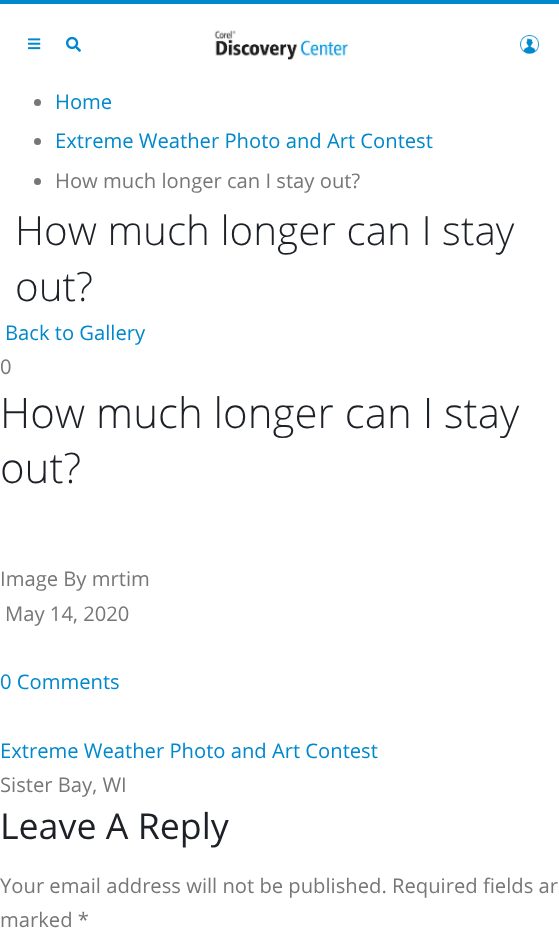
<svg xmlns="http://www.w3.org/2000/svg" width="559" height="945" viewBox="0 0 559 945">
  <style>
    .t1 { font: 20.2px Open Sans; fill: #08c; }
    .t2 { font: 20.2px Open Sans; fill: #777; }
    .t3 { font: 300 40.4px Open Sans; fill: #1d2127; }
    .t4 { font: 300 42px Open Sans; fill: #1d2127; }
    .t5 { font: 35.75px Open Sans; fill: #1d2127; }
  </style>
  <rect width="100%" height="100%" fill="#fff"/>
  <rect x="0" y="0" width="559" height="4" fill="#08c"/>
  <image x="28" y="38" width="13" height="12" href="images/1.png"/>
  <image x="66" y="36" width="15" height="16" href="images/2.png"/>
  <image x="214" y="30" width="136" height="30" href="images/3.png"/>
  <image x="520" y="35" width="19" height="19" href="images/4.png"/>
  <circle cx="37.5" cy="102.5" r="3.5" fill="#777"/>
  <text x="55" y="109" class="t1">Home</text>
  <circle cx="37.5" cy="141.5" r="3.5" fill="#777"/>
  <text x="55" y="148" class="t1">Extreme Weather Photo and Art Contest</text>
  <circle cx="37.5" cy="181.5" r="3.5" fill="#777"/>
  <text x="55" y="188" class="t2">How much longer can I stay out?</text>
  <text x="15" y="245" class="t3">How much longer can I stay</text>
  <text x="15" y="301" class="t3">out?</text>
  <text x="5" y="340" class="t1">Back to Gallery</text>
  <text x="0" y="374" class="t2">0</text>
  <text x="0" y="428" class="t4">How much longer can I stay</text>
  <text x="0" y="483" class="t4">out?</text>
  <text x="0" y="586" class="t2">Image By mrtim</text>
  <text x="5" y="621" class="t2">May 14, 2020</text>
  <text x="0" y="689" class="t1">0 Comments</text>
  <text x="0" y="758" class="t1">Extreme Weather Photo and Art Contest</text>
  <text x="0" y="792" class="t2">Sister Bay, WI</text>
  <text x="0" y="839" class="t5">Leave A Reply</text>
  <text x="0" y="893" class="t2">Your email address will not be published. Required fields ar</text>
  <text x="0" y="927" class="t2">marked *</text>
</svg>
